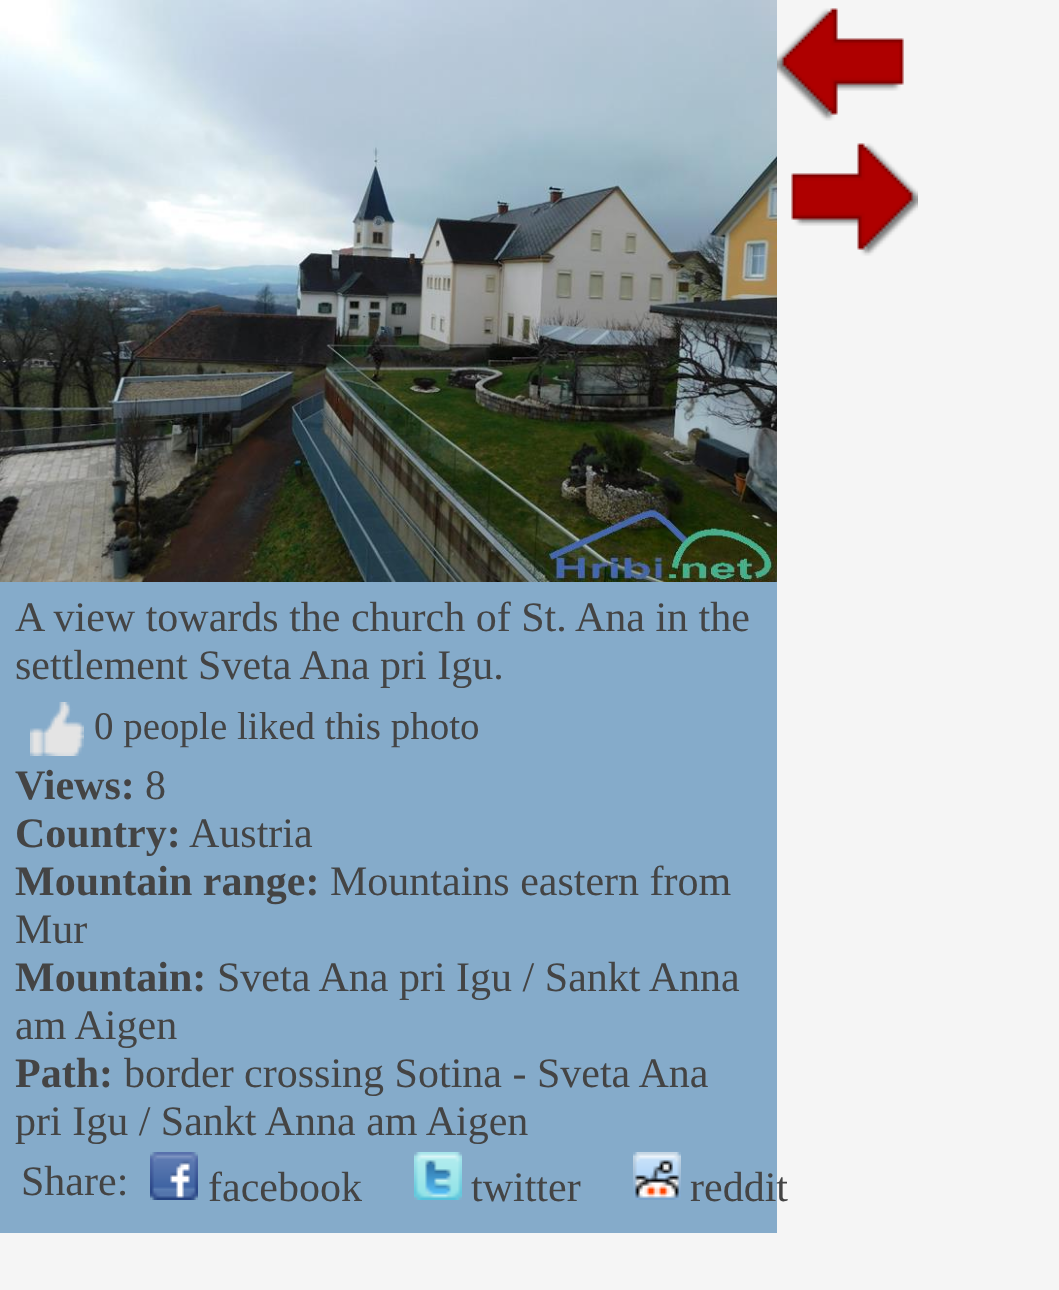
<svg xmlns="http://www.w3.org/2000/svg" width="1059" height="1290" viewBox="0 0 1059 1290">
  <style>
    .t1 { font: 42px Liberation Serif; fill: #444; }
    .t2 { font: 39px Liberation Serif; fill: #444; }
    .t3 { font: bold 42px Liberation Serif; fill: #444; }
  </style>
  <rect width="100%" height="100%" fill="#f5f5f5"/>
  <image x="777" y="8" width="127" height="113" href="images/1.png"/>
  <image x="791" y="143" width="127" height="113" href="images/2.png"/>
  <rect x="0" y="582" width="777" height="651" fill="#85abca"/>
  <image x="0" y="0" width="777" height="582" href="images/3.png"/>
  <text x="15" y="631" class="t1">A view towards the church of St. Ana in the</text>
  <text x="15" y="679" class="t1">settlement Sveta Ana pri Igu.</text>
  <image x="30" y="702" width="54" height="54" href="images/4.png"/>
  <text x="94" y="739" class="t2">0 people liked this photo</text>
  <text x="15" y="799" class="t3">Views:</text>
  <text x="145" y="799" class="t1">8</text>
  <text x="15" y="847" class="t3">Country:</text>
  <text x="189" y="847" class="t1">Austria</text>
  <text x="15" y="895" class="t3">Mountain range:</text>
  <text x="330" y="895" class="t1">Mountains eastern from</text>
  <text x="15" y="943" class="t1">Mur</text>
  <text x="15" y="991" class="t3">Mountain:</text>
  <text x="217" y="991" class="t1">Sveta Ana pri Igu / Sankt Anna</text>
  <text x="15" y="1039" class="t1">am Aigen</text>
  <text x="15" y="1087" class="t3">Path:</text>
  <text x="124" y="1087" class="t1">border crossing Sotina - Sveta Ana</text>
  <text x="15" y="1135" class="t1">pri Igu / Sankt Anna am Aigen</text>
  <text x="21" y="1195" class="t1">Share:</text>
  <image x="150" y="1152" width="48" height="48" href="images/5.png"/>
  <text x="208" y="1201" class="t1">facebook</text>
  <image x="414" y="1152" width="48" height="48" href="images/6.png"/>
  <text x="471" y="1201" class="t1">twitter</text>
  <image x="633" y="1152" width="48" height="48" href="images/7.png"/>
  <text x="690" y="1201" class="t1">reddit</text>
</svg>
